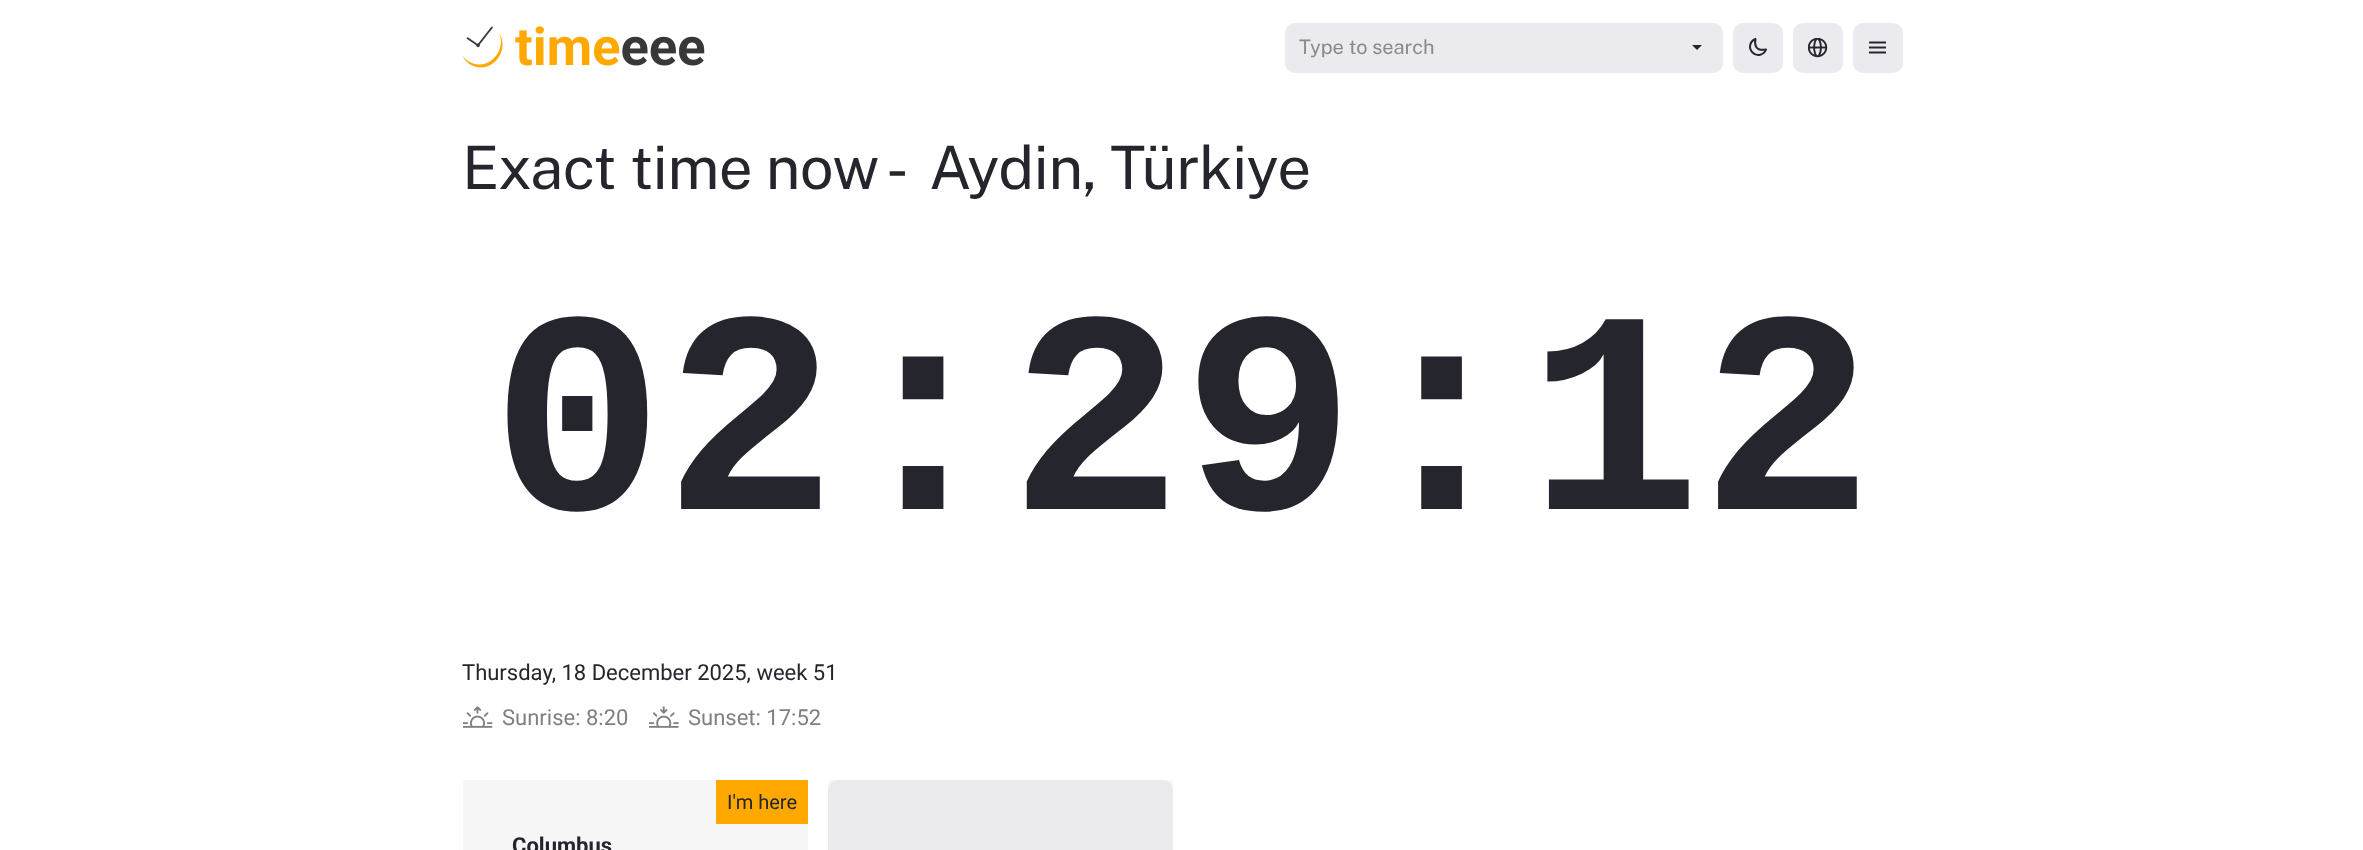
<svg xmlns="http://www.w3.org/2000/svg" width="2363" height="850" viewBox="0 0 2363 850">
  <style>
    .t1 { font: 20px Public Sans; fill: #88888e; }
    .t2 { font: 60px Public Sans; letter-spacing: -0.6px; fill: #25252d; }
    .t3 { font: bold 288px Liberation Mono; fill: #25252d; }
    .t4 { font: 22px Roboto; fill: #25252d; }
    .t5 { font: 22px Roboto; fill: #808080; }
    .t6 { font: 20px Roboto; fill: #25252d; }
    .t7 { font: bold 22px Roboto; fill: #25252d; }
  </style>
  <rect width="100%" height="100%" fill="#fff"/>
  <image x="463" y="26" width="242" height="42" href="images/1.png"/>
  <rect x="1285" y="23" width="438" height="50" rx="10" fill="#ebebef"/>
  <text x="1299" y="54" class="t1">Type to search</text>
  <path d="M1692 45L1697 50L1702 45Z" fill="#25252d"/>
  <rect x="1733" y="23" width="50" height="50" rx="10" fill="#ebebef"/>
  <path d="M1755.5 39C1750 41 1748 48 1752.5 52.5C1757 57 1764 55 1766 49.5C1754.5 51.5 1754.5 43.5 1755.5 39Z" fill="none" stroke="#25252d" stroke-width="2" stroke-linecap="round" stroke-linejoin="round"/>
  <rect x="1793" y="23" width="50" height="50" rx="10" fill="#ebebef"/>
  <image x="1808" y="38" width="20" height="20" href="images/2.png"/>
  <rect x="1853" y="23" width="50" height="50" rx="10" fill="#ebebef"/>
  <path d="M1869 47.5H1886M1869 52.5H1886M1869 42.5H1886" fill="none" stroke="#25252d" stroke-width="1.9"/>
  <text x="462" y="189" class="t2">Exact time now -</text>
  <text x="929" y="189" class="t2">Aydin, Türkiye</text>
  <text x="491" y="509" class="t3">02:29:12</text>
  <text x="462" y="680" class="t4">Thursday, 18 December 2025, week 51</text>
  <image x="463" y="706" width="30" height="22" href="images/3.png"/>
  <text x="502" y="725" class="t5">Sunrise: 8:20</text>
  <image x="649" y="706" width="30" height="22" href="images/4.png"/>
  <text x="688" y="725" class="t5">Sunset: 17:52</text>
  <rect x="463" y="780" width="345" height="70" fill="#f7f7f8"/>
  <rect x="716" y="780" width="92" height="44" fill="#ffa800"/>
  <text x="727" y="809" class="t6">I'm here</text>
  <text x="512" y="853" class="t7">Columbus</text>
  <rect x="828" y="780" width="345" height="10" fill="#f7f7f8"/>
  <rect x="828" y="780" width="345" height="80" rx="10" fill="#ebebef"/>
</svg>
